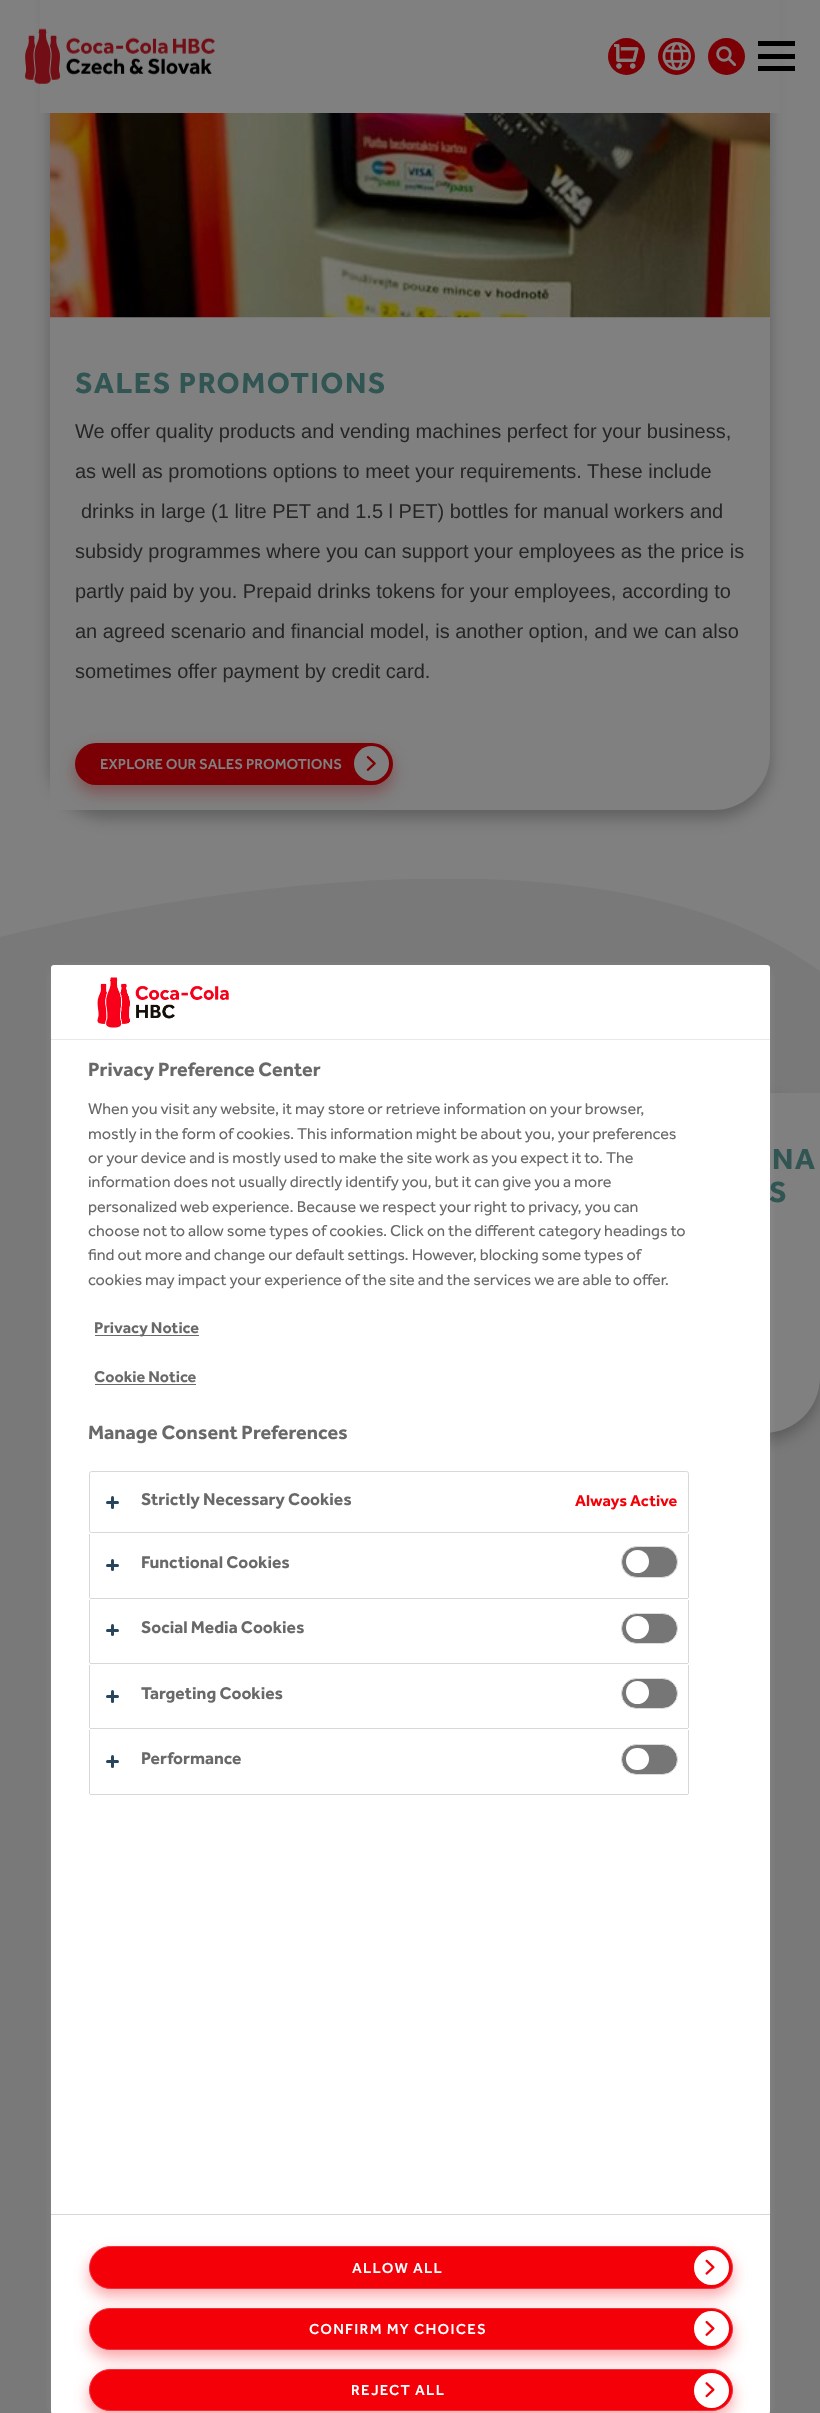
<svg xmlns="http://www.w3.org/2000/svg" width="820" height="2413" viewBox="0 0 820 2413">
  <style>
    .t1 { font: bold 30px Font; letter-spacing: 1.5px; fill: #315552; }
    .t2 { font: 20px Liberation Sans; fill: #252525; }
    .t3 { font: 500 15px Font; fill: #808080; }
    .t4 { font: bold 20px Font; fill: #696969; }
    .t5 { font: 16.25px Font; fill: #696969; }
    .t6 { font: bold 16.25px Font; fill: #696969; }
    .t7 { font: bold 17.5px Font; fill: #696969; }
    .t8 { font: bold 16.25px Font; fill: #f40009; }
    .t9 { font: 500 15px Font; letter-spacing: 1.25px; fill: #fff; }
  </style>
  <defs>
    <clipPath id="clip1"><rect x="0" y="879" width="820" height="92"/></clipPath>
  </defs>
  <rect width="100%" height="100%" fill="#808080"/>
  <rect x="50" y="-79" width="720" height="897" rx="56" fill="#00000040" filter="blur(7.5px)"/>
  <path d="M50-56H770V754C770 785 745 810 714 810H50Z" fill="#808080"/>
  <rect x="40" y="0" width="740" height="113" fill="#808080"/>
  <image x="25" y="28" width="190" height="56" href="images/1.png"/>
  <circle cx="626.5" cy="56.5" r="18.5" fill="#7a0005"/>
  <image x="614" y="44" width="25" height="25" href="images/2.png"/>
  <circle cx="676.5" cy="56.5" r="18.5" fill="#7a0005"/>
  <image x="662" y="42" width="29" height="29" href="images/3.png"/>
  <circle cx="726.5" cy="56.5" r="18.5" fill="#7a0005"/>
  <image x="716" y="46" width="21" height="21" href="images/4.png"/>
  <rect x="758" y="54" width="37" height="5" fill="#000"/>
  <rect x="758" y="41" width="37" height="5" fill="#000"/>
  <rect x="758" y="66" width="37" height="5" fill="#000"/>
  <image x="50" y="113" width="720" height="205" href="images/5.png"/>
  <text x="75" y="393" class="t1">SALES PROMOTIONS</text>
  <text x="75" y="438" class="t2">We offer quality products and vending machines perfect for your business,</text>
  <text x="75" y="478" class="t2">as well as promotions options to meet your requirements. These include</text>
  <text x="81" y="518" class="t2">drinks in large (1 litre PET and 1.5 l PET) bottles for manual workers and</text>
  <text x="75" y="558" class="t2">subsidy programmes where you can support your employees as the price is</text>
  <text x="75" y="598" class="t2">partly paid by you. Prepaid drinks tokens for your employees, according to</text>
  <text x="75" y="638" class="t2">an agreed scenario and financial model, is another option, and we can also</text>
  <text x="75" y="678" class="t2">sometimes offer payment by credit card.</text>
  <rect x="75" y="750" width="318" height="43" rx="21.5" fill="#7a000559" filter="blur(7.5px)"/>
  <rect x="75" y="743" width="318" height="42" rx="21" fill="#7a0005"/>
  <circle cx="371.5" cy="763.5" r="17.5" fill="#808080"/>
  <text x="100" y="769" class="t3">EXPLORE OUR SALES PROMOTIONS</text>
  <image x="366" y="756" width="10" height="15" href="images/6.png"/>
  <rect x="0" y="971" width="820" height="1419" fill="#797979"/>
  <g clip-path="url(#clip1)">
    <path d="M820 971L805 961C569 805 92 914 0 937V971Z" fill="#797979"/>
  </g>
  <rect x="615" y="1100" width="205" height="340" rx="56" fill="#00000040" filter="blur(7.5px)"/>
  <path d="M615 1093H820V1377C820 1408 795 1433 764 1433H615Z" fill="#808080"/>
  <path d="M0 2390V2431C397 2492 380 2346 813 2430L820 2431V2390Z" fill="#797979"/>
  <rect x="55" y="971" width="711" height="1442" fill="#999" filter="blur(6px)"/>
  <text x="769" y="1202" class="t1">S</text>
  <rect x="51" y="965" width="719" height="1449" rx="3" fill="#fff"/>
  <rect x="51" y="1039" width="719" height="1" fill="#e9e9e9"/>
  <image x="97" y="977" width="132" height="51" href="images/7.png"/>
  <text x="88" y="1076" class="t4">Privacy Preference Center</text>
  <text x="88" y="1114" class="t5">When you visit any website, it may store or retrieve information on your browser,</text>
  <text x="88" y="1139" class="t5">mostly in the form of cookies. This information might be about you, your preferences</text>
  <text x="88" y="1163" class="t5">or your device and is mostly used to make the site work as you expect it to. The</text>
  <text x="88" y="1187" class="t5">information does not usually directly identify you, but it can give you a more</text>
  <text x="88" y="1212" class="t5">personalized web experience. Because we respect your right to privacy, you can</text>
  <text x="88" y="1236" class="t5">choose not to allow some types of cookies. Click on the different category headings to</text>
  <text x="88" y="1260" class="t5">find out more and change our default settings. However, blocking some types of</text>
  <text x="88" y="1285" class="t5">cookies may impact your experience of the site and the services we are able to offer.</text>
  <rect x="95" y="1335" width="104" height="1" fill="#696969"/>
  <text x="94" y="1333" class="t6">Privacy Notice</text>
  <text x="94" y="1382" class="t6">Cookie Notice</text>
  <rect x="95" y="1384" width="101" height="1" fill="#696969"/>
  <text x="88" y="1439" class="t4">Manage Consent Preferences</text>
  <rect x="89.5" y="1471.5" width="599" height="61" rx="2" fill="none" stroke="#d8d8d8"/>
  <rect x="111" y="1496" width="3" height="13" rx="1.5" fill="#27455c"/>
  <rect x="106" y="1501" width="13" height="3" rx="1.5" fill="#27455c"/>
  <text x="141" y="1505" class="t7">Strictly Necessary Cookies</text>
  <text x="575" y="1506" class="t8">Always Active</text>
  <rect x="688" y="1534" width="1" height="64" fill="#d8d8d8"/>
  <rect x="90" y="1598" width="598" height="1" fill="#d8d8d8"/>
  <rect x="89" y="1534" width="1" height="64" fill="#d8d8d8"/>
  <rect x="111" y="1559" width="3" height="12" rx="1.5" fill="#27455c"/>
  <rect x="106" y="1564" width="13" height="3" rx="1.5" fill="#27455c"/>
  <text x="141" y="1568" class="t7">Functional Cookies</text>
  <rect x="621.5" y="1546.5" width="56" height="31" rx="15.5" fill="#767676" stroke="#ddd"/>
  <circle cx="637.5" cy="1561.5" r="11.5" fill="#fff"/>
  <rect x="688" y="1600" width="1" height="63" fill="#d8d8d8"/>
  <rect x="90" y="1663" width="598" height="1" fill="#d8d8d8"/>
  <rect x="89" y="1600" width="1" height="63" fill="#d8d8d8"/>
  <rect x="111" y="1624" width="3" height="12" rx="1.5" fill="#27455c"/>
  <rect x="106" y="1629" width="13" height="3" rx="1.5" fill="#27455c"/>
  <text x="141" y="1633" class="t7">Social Media Cookies</text>
  <rect x="621.5" y="1613.5" width="56" height="30" rx="15" fill="#767676" stroke="#ddd"/>
  <circle cx="637.5" cy="1627.5" r="11.5" fill="#fff"/>
  <rect x="688" y="1665" width="1" height="63" fill="#d8d8d8"/>
  <rect x="90" y="1728" width="598" height="1" fill="#d8d8d8"/>
  <rect x="89" y="1665" width="1" height="63" fill="#d8d8d8"/>
  <rect x="111" y="1690" width="3" height="13" rx="1.5" fill="#27455c"/>
  <rect x="106" y="1695" width="13" height="3" rx="1.5" fill="#27455c"/>
  <text x="141" y="1699" class="t7">Targeting Cookies</text>
  <rect x="621.5" y="1678.5" width="56" height="30" rx="15" fill="#767676" stroke="#ddd"/>
  <circle cx="637.5" cy="1692.5" r="11.5" fill="#fff"/>
  <rect x="688" y="1730" width="1" height="64" fill="#d8d8d8"/>
  <rect x="90" y="1794" width="598" height="1" fill="#d8d8d8"/>
  <rect x="89" y="1730" width="1" height="64" fill="#d8d8d8"/>
  <rect x="111" y="1755" width="3" height="13" rx="1.5" fill="#27455c"/>
  <rect x="106" y="1760" width="13" height="3" rx="1.5" fill="#27455c"/>
  <text x="141" y="1764" class="t7">Performance</text>
  <rect x="621.5" y="1744.5" width="56" height="30" rx="15" fill="#767676" stroke="#ddd"/>
  <rect x="626" y="1748" width="23" height="22" rx="11" fill="#fff"/>
  <rect x="51" y="2214" width="719" height="1" fill="#d8d8d8"/>
  <rect x="89" y="2254" width="644" height="42" rx="21" fill="#f4000959" filter="blur(7.5px)"/>
  <rect x="89.5" y="2246.5" width="643" height="42" rx="21" fill="#f40009" stroke="#f1303e"/>
  <circle cx="711.5" cy="2267.5" r="17.5" fill="#fff"/>
  <text x="352" y="2273" class="t9">ALLOW ALL</text>
  <image x="705" y="2259" width="10" height="16" href="images/8.png"/>
  <rect x="89" y="2315" width="644" height="43" rx="21.5" fill="#f4000959" filter="blur(7.5px)"/>
  <rect x="89.5" y="2308.5" width="643" height="41" rx="20.5" fill="#f40009" stroke="#f1303e"/>
  <circle cx="711.5" cy="2328.5" r="17.5" fill="#fff"/>
  <text x="309" y="2334" class="t9">CONFIRM MY CHOICES</text>
  <image x="705" y="2321" width="10" height="15" href="images/9.png"/>
  <rect x="89" y="2376" width="644" height="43" rx="21.5" fill="#f4000959" filter="blur(7.5px)"/>
  <rect x="89.5" y="2369.5" width="643" height="41" rx="20.5" fill="#f40009" stroke="#f1303e"/>
  <circle cx="711.5" cy="2390.5" r="17.5" fill="#fff"/>
  <text x="351" y="2395" class="t9">REJECT ALL</text>
  <image x="705" y="2382" width="10" height="16" href="images/10.png"/>
  <text x="772" y="1169" class="t1">NA</text>
</svg>
